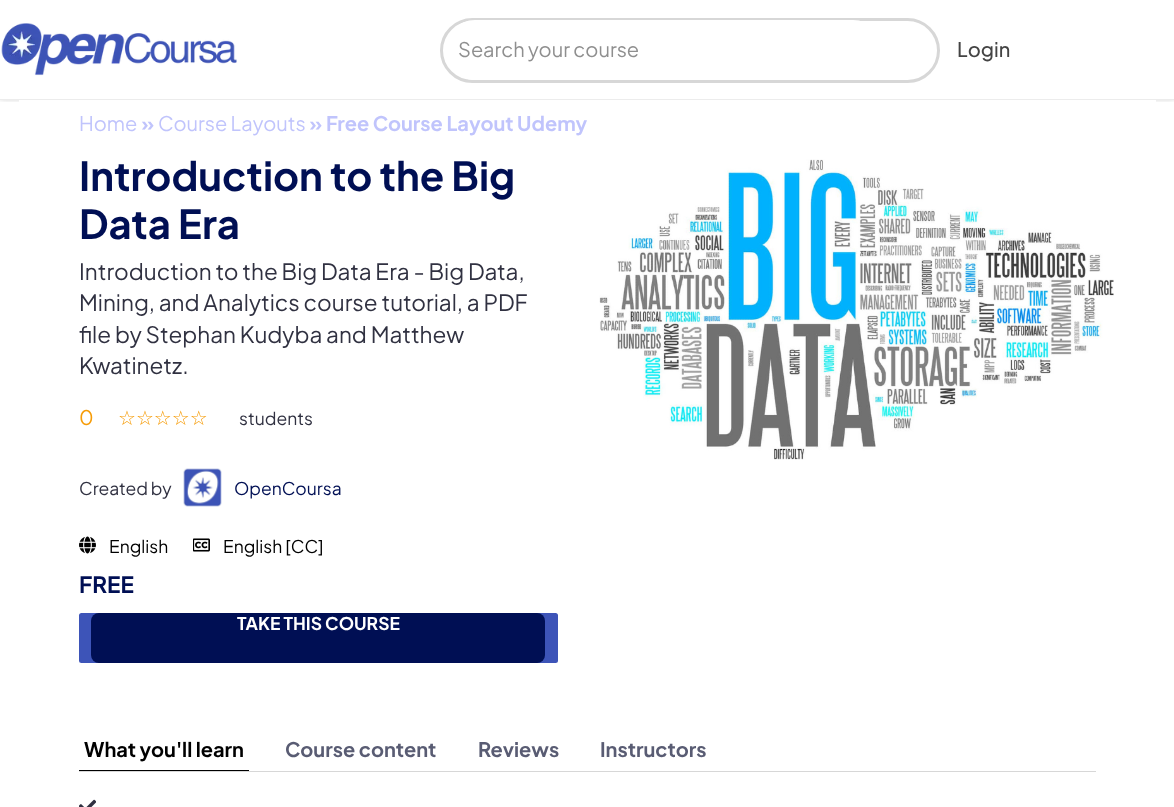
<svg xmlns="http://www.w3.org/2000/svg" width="1174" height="807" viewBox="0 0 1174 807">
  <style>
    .t1 { font: 20px Plus Jakarta Sans; fill: #8f8f8f; }
    .t2 { font: 500 20px Plus Jakarta Sans; fill: #444; }
    .t3 { font: 20px Plus Jakarta Sans; fill: #c0c4fc; }
    .t4 { font: bold 20px Plus Jakarta Sans; fill: #c0c4fc; }
    .t5 { font: bold 40px Plus Jakarta Sans; fill: #000f54; }
    .t6 { font: 22.5px Plus Jakarta Sans; fill: #303141; }
    .t7 { font: 20px Plus Jakarta Sans; fill: #f69c08; }
    .t8 { font: 20px DejaVu Sans; fill: #f69c08; }
    .t9 { font: 17.5px Plus Jakarta Sans; fill: #303141; }
    .t10 { font: 17.5px Plus Jakarta Sans; fill: #000f54; }
    .t11 { font: 17.5px Plus Jakarta Sans; fill: #000; }
    .t12 { font: bold 22.5px Plus Jakarta Sans; fill: #000f54; }
    .t13 { font: bold 17.5px Plus Jakarta Sans; fill: #fff; }
    .t14 { font: bold 20px Plus Jakarta Sans; fill: #000; }
    .t15 { font: bold 20px Plus Jakarta Sans; fill: #595c73; }
  </style>
  <defs>
    <clipPath id="clip1"><rect x="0" y="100" width="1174" height="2"/></clipPath>
  </defs>
  <rect width="100%" height="100%" fill="#fff"/>
  <g clip-path="url(#clip1)">
    <rect x="0" y="-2" width="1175" height="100" fill="#0000004d" filter="blur(3px)"/>
  </g>
  <rect x="0" y="99" width="1174" height="1" fill="#ececec"/>
  <image x="1" y="23" width="236" height="53" href="images/1.png"/>
  <rect x="441.5" y="19.5" width="497" height="62" rx="31" fill="none" stroke="#d7d7d7" stroke-width="3"/>
  <rect x="445" y="20" width="438" height="60" rx="30" fill="#fff"/>
  <text x="458" y="57" class="t1">Search your course</text>
  <text x="957" y="57" class="t2">Login</text>
  <rect x="19" y="100" width="1137" height="3" fill="#fff"/>
  <text x="79" y="131" class="t3">Home</text>
  <text x="141" y="131" class="t4">»</text>
  <text x="158" y="131" class="t3">Course Layouts</text>
  <text x="309" y="131" class="t4">» Free Course Layout Udemy</text>
  <text x="79" y="191" class="t5">Introduction to the Big</text>
  <text x="79" y="239" class="t5">Data Era</text>
  <text x="79" y="280" class="t6">Introduction to the Big Data Era - Big Data,</text>
  <text x="79" y="311" class="t6">Mining, and Analytics course tutorial, a PDF</text>
  <text x="79" y="343" class="t6">file by Stephan Kudyba and Matthew</text>
  <text x="79" y="374" class="t6">Kwatinetz.</text>
  <text x="79" y="425" class="t7">0</text>
  <text x="118" y="425" class="t8">☆☆☆☆☆</text>
  <text x="239" y="425" class="t9">students</text>
  <text x="79" y="495" class="t9">Created by</text>
  <image x="183" y="468" width="39" height="39" href="images/2.png"/>
  <text x="234" y="495" class="t10">OpenCoursa</text>
  <image x="79" y="536" width="17" height="18" href="images/3.png"/>
  <text x="109" y="553" class="t11">English</text>
  <image x="193" y="538" width="17" height="14" href="images/4.png"/>
  <text x="223" y="553" class="t11">English [CC]</text>
  <text x="79" y="593" class="t12">FREE</text>
  <rect x="79" y="613" width="479" height="50" rx="2.5" fill="#3d54b8"/>
  <rect x="91" y="613" width="454" height="50" rx="8" fill="#000f54"/>
  <text x="237" y="630" class="t13">TAKE THIS COURSE</text>
  <image x="599" y="159" width="515" height="301" href="images/5.png"/>
  <rect x="79" y="771" width="1017" height="1" fill="#d7d7d7"/>
  <rect x="79" y="770" width="170" height="1" fill="#000"/>
  <text x="84" y="757" class="t14">What you'll learn</text>
  <text x="285" y="757" class="t15">Course content</text>
  <text x="478" y="757" class="t15">Reviews</text>
  <text x="600" y="757" class="t15">Instructors</text>
  <image x="79" y="799" width="17" height="8" href="images/6.png"/>
</svg>
